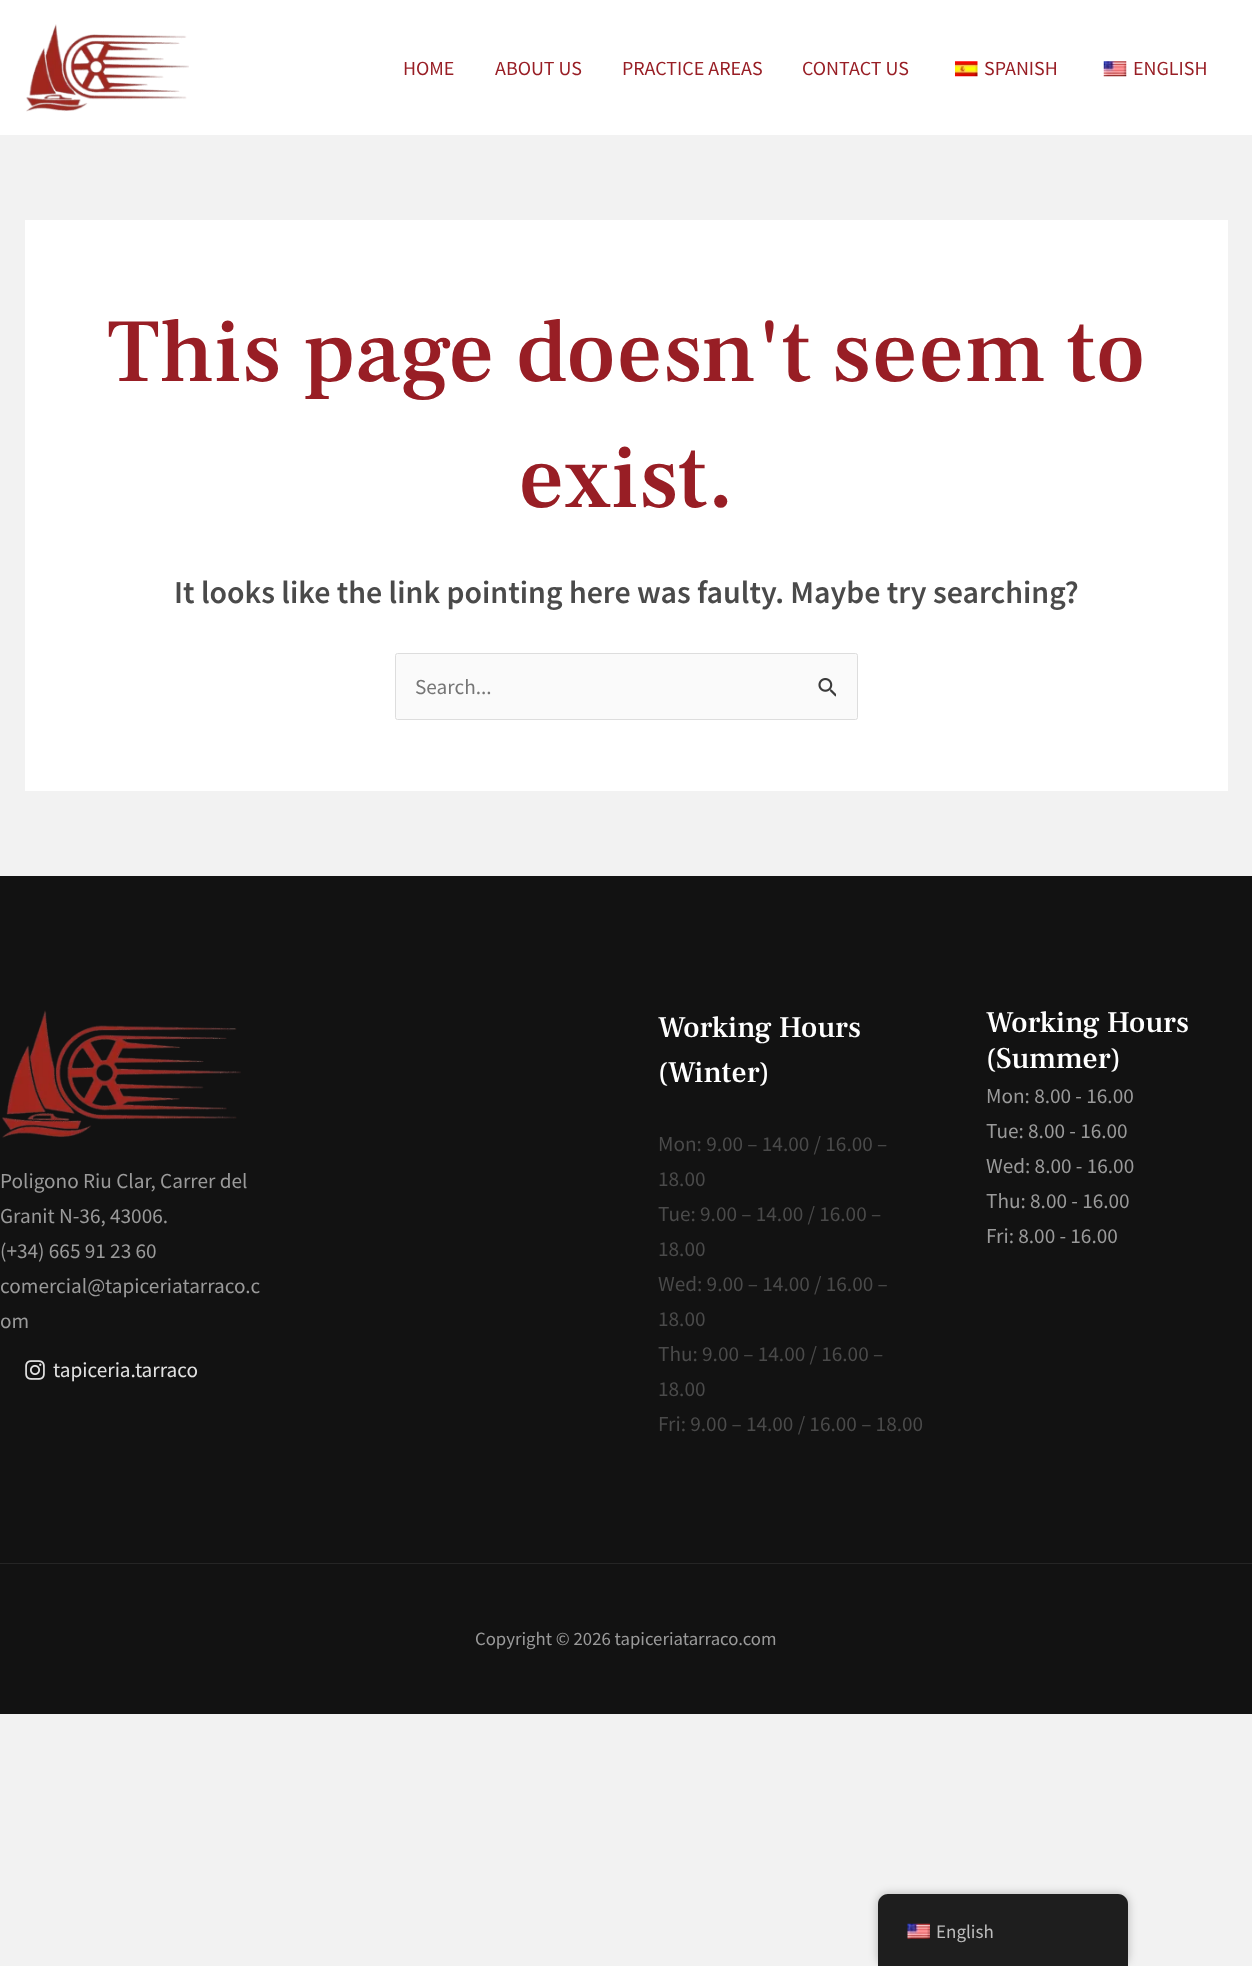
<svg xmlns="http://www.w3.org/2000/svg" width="1252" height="1966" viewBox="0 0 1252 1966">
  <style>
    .t1 { font: 20px Source Sans Pro; fill: #981e25; }
    .t2 { font: 500 90px Frank Ruhl Libre; fill: #981e25; }
    .t3 { font: 600 31.9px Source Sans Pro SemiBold; fill: #4a4a4a; }
    .t4 { font: 21.25px Source Sans Pro; fill: #757575; }
    .t5 { font: 21.25px Source Sans Pro; fill: #9a9a9a; }
    .t6 { font: 21.25px Source Sans Pro; fill: #e2e2e2; }
    .t7 { font: 500 30px Frank Ruhl Libre; fill: #fff; }
    .t8 { font: 21.25px Source Sans Pro; fill: #4a4a4a; }
    .t9 { font: 18.75px Source Sans Pro; fill: #9a9a9a; }
    .t10 { font: 19px Source Sans Pro; fill: #bdbdbd; }
  </style>
  <rect width="100%" height="100%" fill="#f2f2f2"/>
  <rect x="0" y="0" width="1252" height="135" fill="#fff"/>
  <image x="26" y="24" width="163" height="88" href="images/1.png"/>
  <text x="403" y="75" class="t1">HOME</text>
  <text x="495" y="75" class="t1">ABOUT US</text>
  <text x="622" y="75" class="t1">PRACTICE AREAS</text>
  <text x="802" y="75" class="t1">CONTACT US</text>
  <image x="955" y="61" width="23" height="16" href="images/2.png"/>
  <text x="984" y="75" class="t1">SPANISH</text>
  <image x="1103" y="61" width="24" height="16" href="images/3.png"/>
  <text x="1133" y="75" class="t1">ENGLISH</text>
  <rect x="25" y="220" width="1203" height="571" fill="#fff"/>
  <text x="107" y="381" class="t2">This page doesn't seem to</text>
  <text x="518" y="507" class="t2">exist.</text>
  <text x="174" y="603" class="t3">It looks like the link pointing here was faulty. Maybe try searching?</text>
  <rect x="395.5" y="653.5" width="462" height="66" rx="2" fill="#fafafa" stroke="#ddd"/>
  <text x="415" y="694" class="t4">Search...</text>
  <image x="818" y="678" width="18" height="19" href="images/4.png"/>
  <rect x="0" y="876" width="1252" height="687" fill="#121212"/>
  <image x="2" y="1010" width="239" height="128" href="images/5.png"/>
  <text x="0" y="1188" class="t5">Poligono Riu Clar, Carrer del</text>
  <text x="0" y="1223" class="t5">Granit N-36, 43006.</text>
  <text x="0" y="1258" class="t5">(+34) 665 91 23 60</text>
  <text x="0" y="1293" class="t5">comercial@tapiceriatarraco.c</text>
  <text x="0" y="1328" class="t5">om</text>
  <image x="25" y="1360" width="20" height="20" href="images/6.png"/>
  <text x="53" y="1377" class="t6">tapiceria.tarraco</text>
  <text x="658" y="1037" class="t7">Working Hours</text>
  <text x="658" y="1082" class="t7">(Winter)</text>
  <text x="658" y="1151" class="t8">Mon: 9.00 – 14.00 / 16.00 –</text>
  <text x="658" y="1186" class="t8">18.00</text>
  <text x="658" y="1221" class="t8">Tue: 9.00 – 14.00 / 16.00 –</text>
  <text x="658" y="1256" class="t8">18.00</text>
  <text x="658" y="1291" class="t8">Wed: 9.00 – 14.00 / 16.00 –</text>
  <text x="658" y="1326" class="t8">18.00</text>
  <text x="658" y="1361" class="t8">Thu: 9.00 – 14.00 / 16.00 –</text>
  <text x="658" y="1396" class="t8">18.00</text>
  <text x="658" y="1431" class="t8">Fri: 9.00 – 14.00 / 16.00 – 18.00</text>
  <text x="986" y="1032" class="t7">Working Hours</text>
  <text x="986" y="1068" class="t7">(Summer)</text>
  <text x="986" y="1103" class="t5">Mon: 8.00 - 16.00</text>
  <text x="986" y="1138" class="t5">Tue: 8.00 - 16.00</text>
  <text x="986" y="1173" class="t5">Wed: 8.00 - 16.00</text>
  <text x="986" y="1208" class="t5">Thu: 8.00 - 16.00</text>
  <text x="986" y="1243" class="t5">Fri: 8.00 - 16.00</text>
  <rect x="0" y="1564" width="1252" height="150" fill="#121212"/>
  <rect x="0" y="1563" width="1252" height="1" fill="#252525"/>
  <text x="475" y="1645" class="t9">Copyright © 2026 tapiceriatarraco.com</text>
  <rect x="878" y="1894" width="250" height="72" rx="10" fill="#00000040" filter="blur(5px)"/>
  <path d="M888 1894H1118C1123.5 1894 1128 1898.5 1128 1904V1966H878V1904C878 1898.5 882.5 1894 888 1894Z" fill="#1e1e1e"/>
  <image x="907" y="1923" width="23" height="16" href="images/7.png"/>
  <text x="936" y="1938" class="t10">English</text>
</svg>
